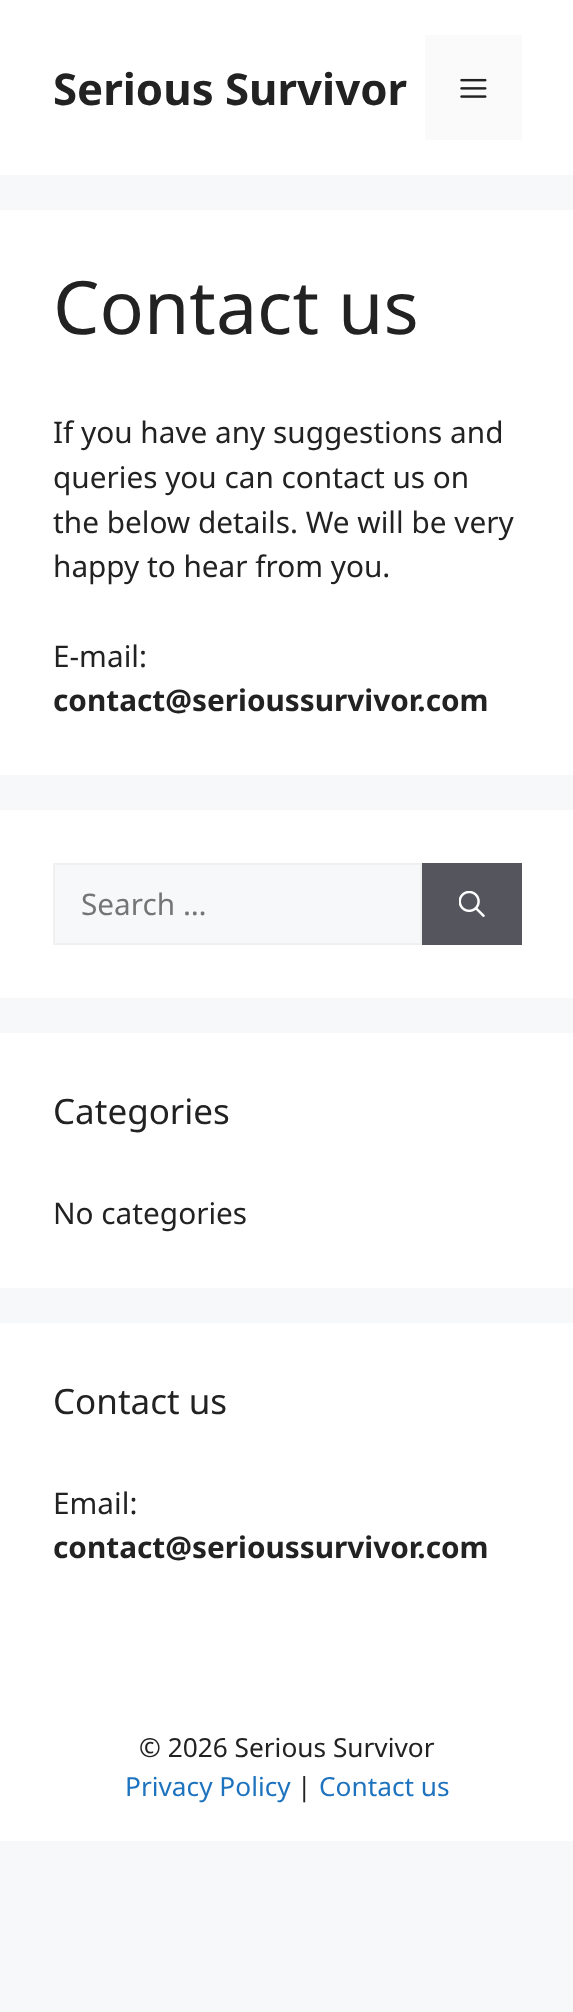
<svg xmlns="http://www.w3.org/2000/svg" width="573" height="2012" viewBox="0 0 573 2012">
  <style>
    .t1 { font: bold 43.75px Noto Sans; fill: #222; }
    .t2 { font: 73.5px Noto Sans; fill: #222; }
    .t3 { font: 29.75px Noto Sans; fill: #222; }
    .t4 { font: bold 29.75px Noto Sans; fill: #222; }
    .t5 { font: 29.75px Noto Sans; fill: #757575; }
    .t6 { font: 35px Noto Sans; fill: #222; }
    .t7 { font: 26.25px Noto Sans; fill: #222; }
    .t8 { font: 26.25px Noto Sans; fill: #1e73be; }
  </style>
  <rect width="100%" height="100%" fill="#f7f8f9"/>
  <rect x="0" y="0" width="573" height="175" fill="#fff"/>
  <text x="53" y="105" class="t1">Serious Survivor</text>
  <rect x="425" y="35" width="97" height="105" fill="#fafafa"/>
  <image x="460" y="78" width="27" height="20" href="images/1.png"/>
  <rect x="0" y="210" width="573" height="565" fill="#fff"/>
  <text x="53" y="334" class="t2">Contact us</text>
  <text x="53" y="443" class="t3">If you have any suggestions and</text>
  <text x="53" y="488" class="t3">queries you can contact us on</text>
  <text x="53" y="533" class="t3">the below details. We will be very</text>
  <text x="53" y="577" class="t3">happy to hear from you.</text>
  <text x="53" y="667" class="t3">E-mail:</text>
  <text x="53" y="711" class="t4">contact@serioussurvivor.com</text>
  <rect x="0" y="810" width="573" height="188" fill="#fff"/>
  <rect x="54" y="864" width="367" height="80" fill="#f7f8f9" stroke="#f0f0f0" stroke-width="2"/>
  <text x="81" y="915" class="t5">Search …</text>
  <rect x="422" y="863" width="100" height="82" fill="#55555e"/>
  <image x="459" y="891" width="26" height="26" href="images/2.png"/>
  <rect x="0" y="1033" width="573" height="255" fill="#fff"/>
  <text x="53" y="1124" class="t6">Categories</text>
  <text x="53" y="1224" class="t3">No categories</text>
  <rect x="0" y="1323" width="573" height="518" fill="#fff"/>
  <text x="53" y="1414" class="t6">Contact us</text>
  <text x="53" y="1514" class="t3">Email:</text>
  <text x="53" y="1558" class="t4">contact@serioussurvivor.com</text>
  <text x="139" y="1757" class="t7">© 2026 Serious Survivor</text>
  <text x="125" y="1796" class="t8">Privacy Policy</text>
  <text x="297" y="1796" class="t7">|</text>
  <text x="319" y="1796" class="t8">Contact us</text>
</svg>
